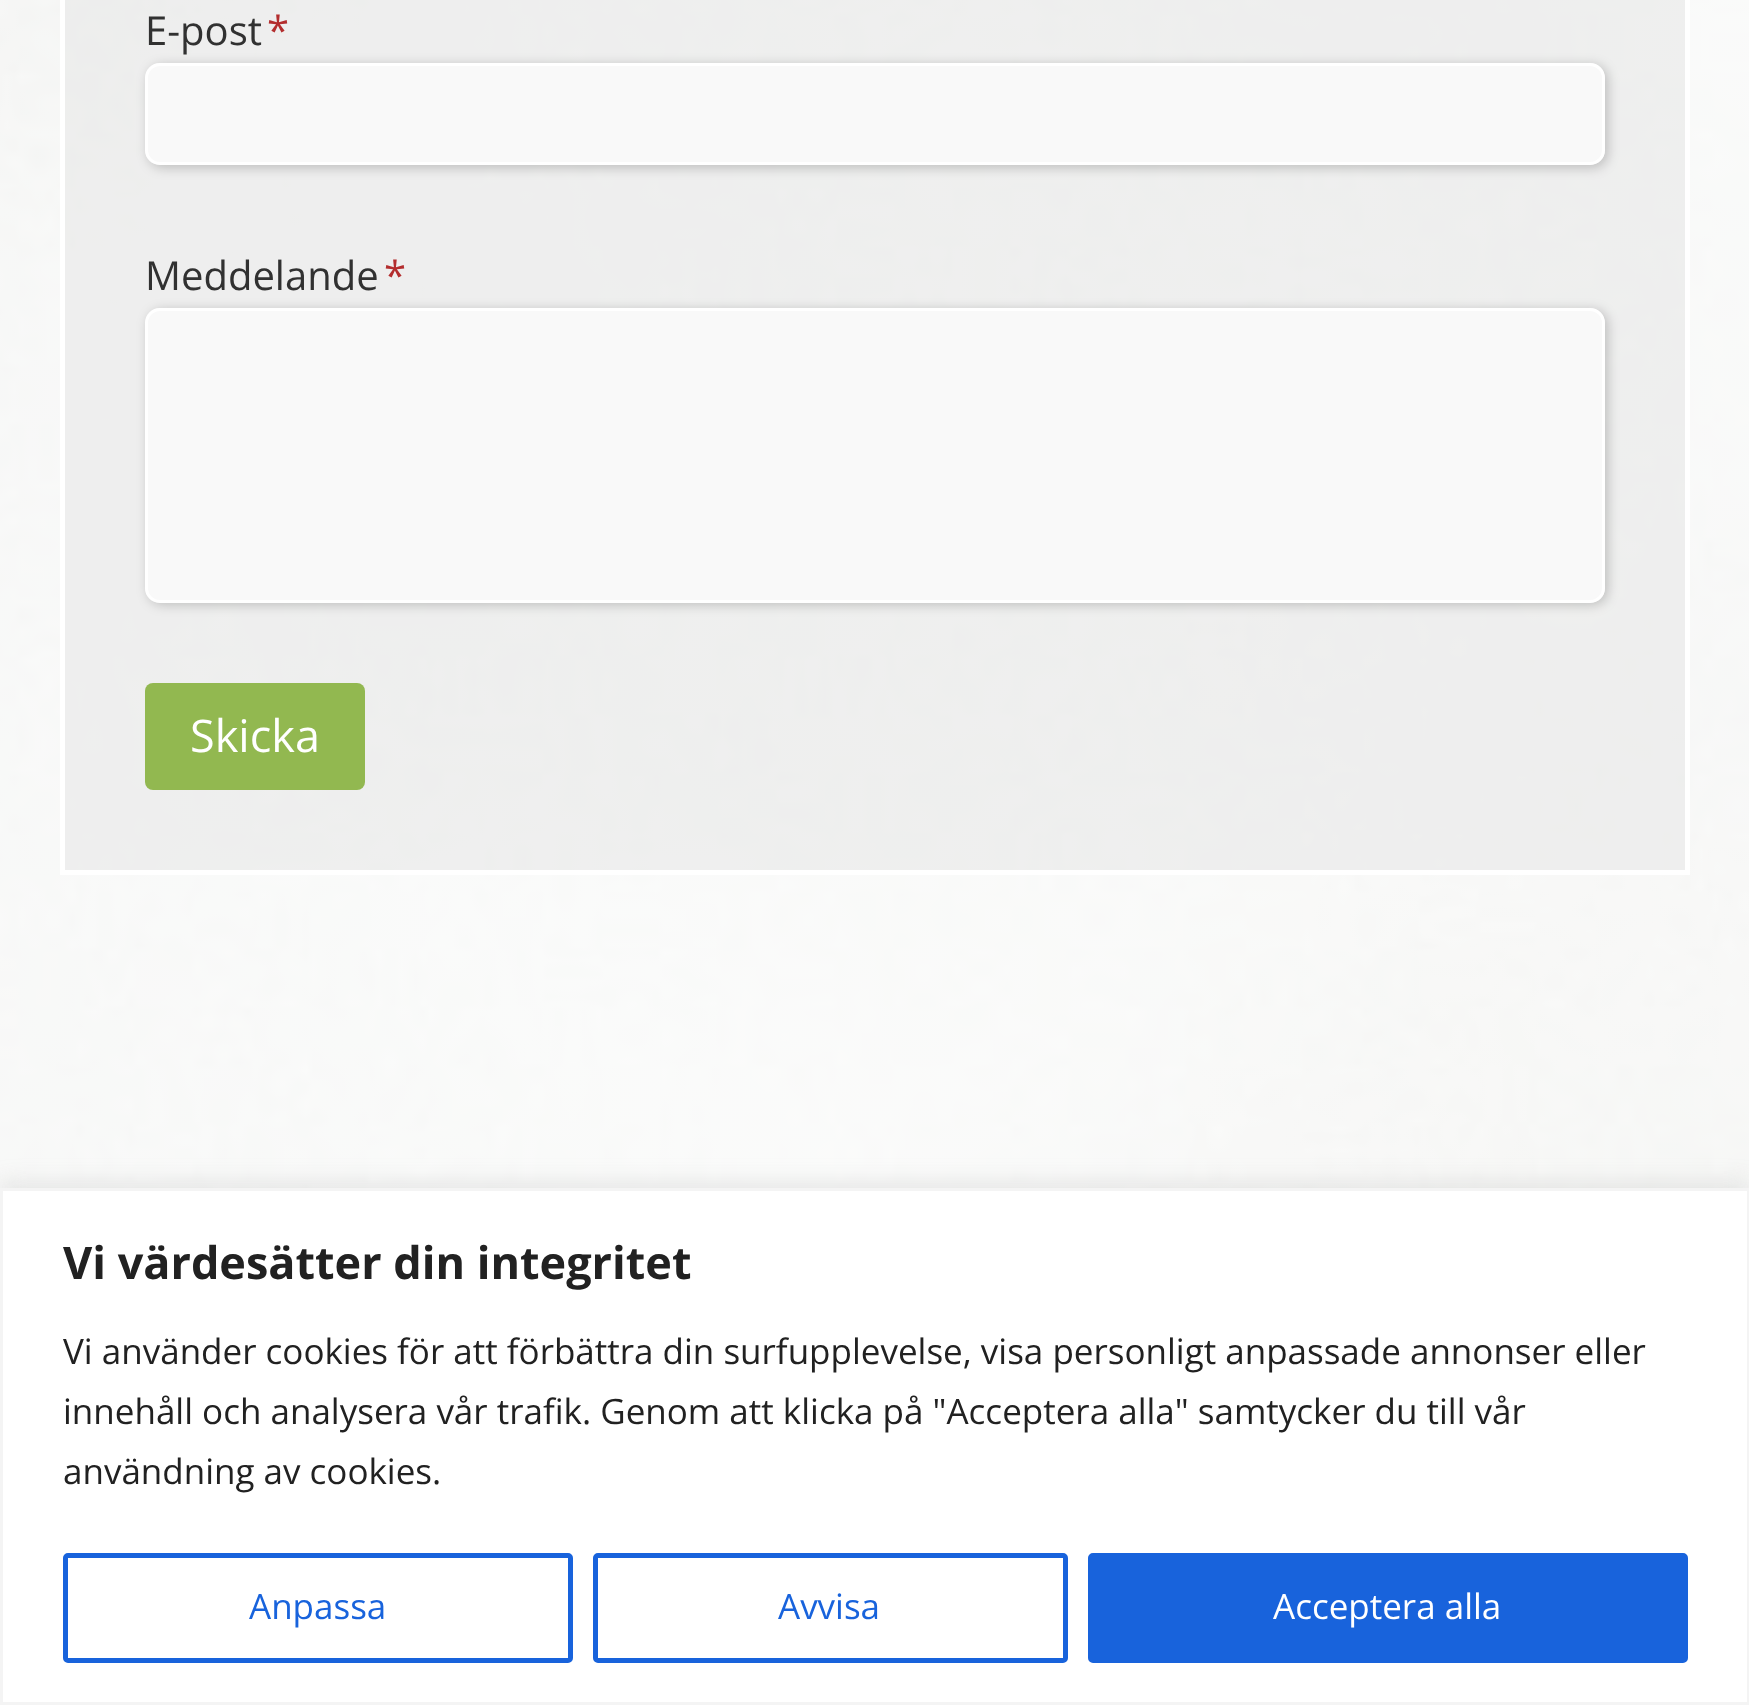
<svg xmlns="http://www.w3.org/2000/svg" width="1749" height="1705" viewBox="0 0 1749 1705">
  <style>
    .t1 { font: 40px Open Sans; fill: #313131; }
    .t2 { font: 40px Open Sans; fill: #b32d2e; }
    .t3 { font: 45px Open Sans; fill: #fff; }
    .t4 { font: bold 45px Open Sans; fill: #212121; }
    .t5 { font: 35px Open Sans; fill: #212121; }
    .t6 { font: 35px Open Sans; fill: #1863dc; }
    .t7 { font: 35px Open Sans; fill: #fff; }
  </style>
  <defs>
    <linearGradient id="g1" gradientUnits="userSpaceOnUse" x1="875" y1="-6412" x2="875" y2="1395"><stop offset="0" stop-color="#fff" stop-opacity="0.46"/><stop offset="0.47" stop-color="#e9e6e4" stop-opacity="0.91"/><stop offset="0.78" stop-color="#fff" stop-opacity="0.91"/></linearGradient>
    <clipPath id="clip1"><path d="M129 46H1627V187H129ZM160 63H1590C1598.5 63 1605 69.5 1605 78V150C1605 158.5 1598.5 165 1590 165H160C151.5 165 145 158.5 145 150V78C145 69.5 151.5 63 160 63Z" clip-rule="evenodd"/></clipPath>
    <clipPath id="clip2"><path d="M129 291H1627V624H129ZM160 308H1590C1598.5 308 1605 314.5 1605 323V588C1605 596.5 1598.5 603 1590 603H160C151.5 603 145 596.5 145 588V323C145 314.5 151.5 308 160 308Z" clip-rule="evenodd"/></clipPath>
  </defs>
  <rect width="100%" height="100%" fill="#fff"/>
  <image x="0" y="0" width="1749" height="1188" href="images/1.png"/>
  <rect x="0" y="0" width="1749" height="1188" fill="url(#g1)"/>
  <rect x="62.5" y="-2.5" width="1625" height="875" fill="none" stroke="#fff" stroke-width="5"/>
  <rect x="65" y="0" width="1620" height="870" fill="#e6e6e68f"/>
  <text x="145" y="45" class="t1">E-post</text>
  <text x="267" y="45" class="t2">*</text>
  <g clip-path="url(#clip1)">
    <rect x="148" y="65" width="1460" height="103" rx="15" fill="#00000033" filter="blur(6px)"/>
  </g>
  <rect x="146.5" y="64.5" width="1457" height="99" rx="13.5" fill="#fafafae8" stroke="#fff" stroke-width="3"/>
  <text x="145" y="290" class="t1">Meddelande</text>
  <text x="384" y="290" class="t2">*</text>
  <g clip-path="url(#clip2)">
    <rect x="148" y="310" width="1460" height="295" rx="15" fill="#00000033" filter="blur(6px)"/>
  </g>
  <rect x="146.5" y="309.5" width="1457" height="292" rx="13.5" fill="#fafafae8" stroke="#fff" stroke-width="3"/>
  <rect x="145" y="683" width="220" height="107" rx="8" fill="#92b850"/>
  <text x="190" y="752" class="t3">Skicka</text>
  <rect x="0" y="1185" width="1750" height="518" fill="#acabab4d" filter="blur(12.5px)"/>
  <rect x="1.5" y="1189.5" width="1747" height="514" fill="#fff" stroke="#f4f4f4" stroke-width="3"/>
  <text x="63" y="1279" class="t4">Vi värdesätter din integritet</text>
  <text x="63" y="1364" class="t5">Vi använder cookies för att förbättra din surfupplevelse, visa personligt anpassade annonser eller</text>
  <text x="63" y="1424" class="t5">innehåll och analysera vår trafik. Genom att klicka på "Acceptera alla" samtycker du till vår</text>
  <text x="63" y="1484" class="t5">användning av cookies.</text>
  <rect x="65.5" y="1555.5" width="505" height="105" rx="2.5" fill="none" stroke="#1863dc" stroke-width="5"/>
  <text x="249" y="1619" class="t6">Anpassa</text>
  <rect x="595.5" y="1555.5" width="470" height="105" rx="2.5" fill="none" stroke="#1863dc" stroke-width="5"/>
  <text x="778" y="1619" class="t6">Avvisa</text>
  <rect x="1090.5" y="1555.5" width="595" height="105" rx="2.5" fill="#1863dc" stroke="#1863dc" stroke-width="5"/>
  <text x="1273" y="1619" class="t7">Acceptera alla</text>
</svg>
